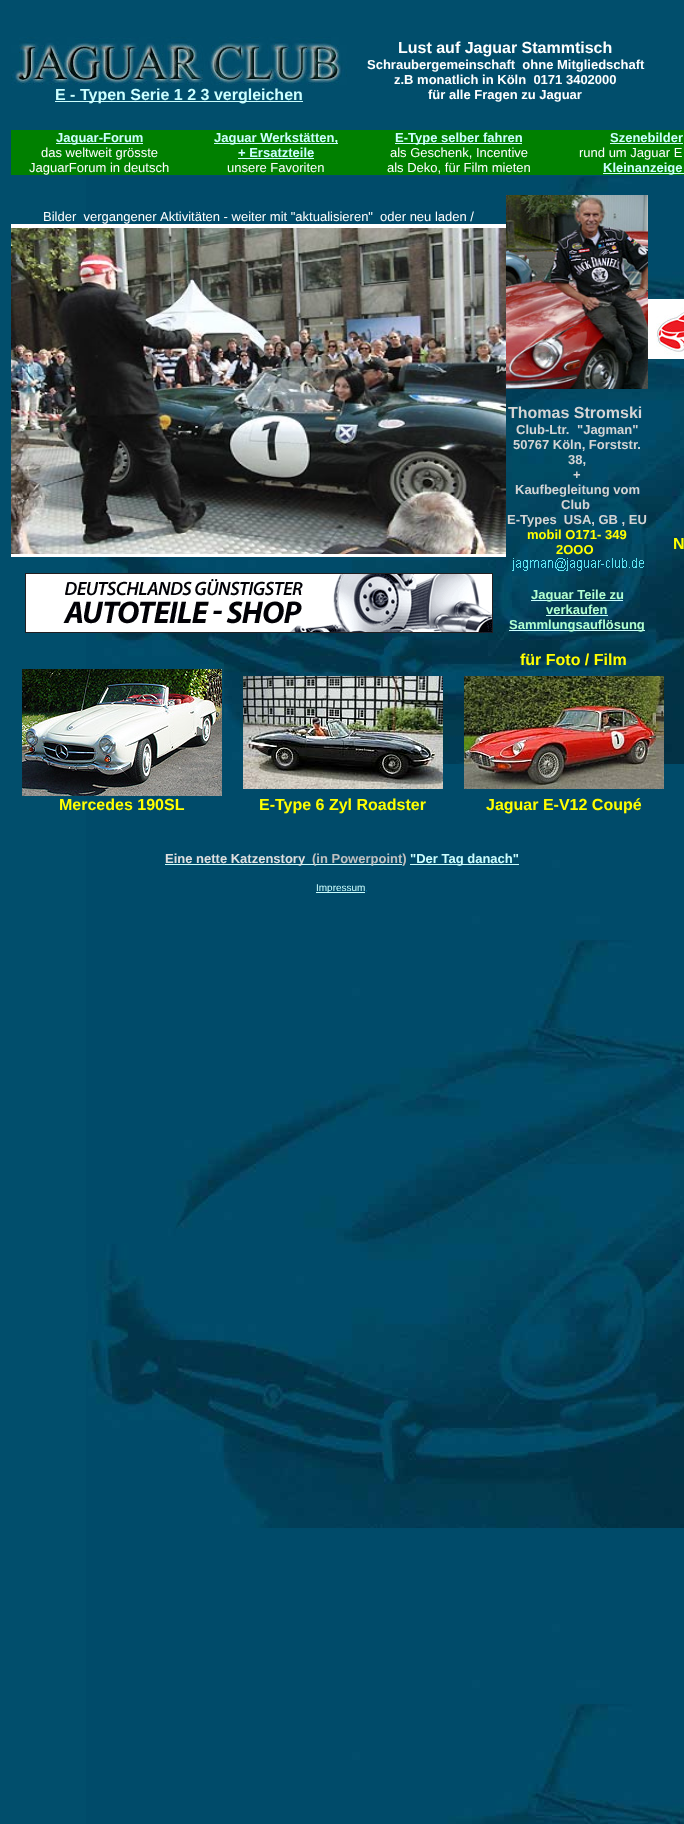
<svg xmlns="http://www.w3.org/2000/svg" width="684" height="1824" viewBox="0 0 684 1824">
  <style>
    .t1 { font: bold 16px Liberation Sans; fill: #cff; }
    .t2 { font: bold 16px Liberation Sans; fill: #fff; }
    .t3 { font: bold 13px Liberation Sans; fill: #fff; }
    .t4 { font: bold 13px Liberation Sans; fill: #cff; }
    .t5 { font: 13px Liberation Sans; fill: #fff; }
    .t6 { font: bold 16px Liberation Sans; fill: #d4d4d4; }
    .t7 { font: bold 13px Liberation Sans; fill: #d4d4d4; }
    .t8 { font: bold 13px Liberation Sans; fill: #ff0; }
    .t9 { font: bold 13px Liberation Sans; fill: #b3ffd1; }
    .t10 { font: bold 16px Liberation Sans; fill: #ff0; }
    .t11 { font: bold 13px Liberation Sans; fill: #e0e0e0; }
    .t12 { font: bold 13px Liberation Sans; fill: #c0c0c0; }
    .t13 { font: 10px Liberation Sans; fill: #cff; }
    .t14 { font: 10px Liberation Sans; fill: #069; }
  </style>
  <rect width="100%" height="100%" fill="#014e6c"/>
  <image x="86" y="176" width="598" height="1648" href="images/1.png"/>
  <image x="11" y="37" width="336" height="48" href="images/2.png"/>
  <rect x="55" y="101" width="248" height="1" fill="#cff"/>
  <text x="55" y="100" class="t1">E - Typen Serie 1 2 3 vergleichen</text>
  <text x="398" y="53" class="t2">Lust auf Jaguar Stammtisch</text>
  <text x="367" y="69" class="t3" xml:space="preserve">Schraubergemeinschaft  ohne Mitgliedschaft</text>
  <text x="394" y="84" class="t3" xml:space="preserve">z.B monatlich in Köln  0171 3402000</text>
  <text x="428" y="99" class="t3">für alle Fragen zu Jaguar</text>
  <rect x="11" y="130" width="673" height="45" fill="#008000"/>
  <rect x="56" y="143" width="87" height="1" fill="#cff"/>
  <text x="56" y="142" class="t4">Jaguar-Forum</text>
  <text x="41" y="157" class="t5">das weltweit grösste</text>
  <text x="29" y="172" class="t5">JaguarForum in deutsch</text>
  <rect x="214" y="143" width="124" height="1" fill="#cff"/>
  <text x="214" y="142" class="t4">Jaguar Werkstätten,</text>
  <text x="238" y="157" class="t4">+ Ersatzteile</text>
  <rect x="238" y="158" width="76" height="1" fill="#cff"/>
  <text x="227" y="172" class="t5">unsere Favoriten</text>
  <rect x="395" y="143" width="127" height="1" fill="#cff"/>
  <text x="395" y="142" class="t4">E-Type selber fahren</text>
  <text x="390" y="157" class="t5">als Geschenk, Incentive</text>
  <text x="387" y="172" class="t5">als Deko, für Film mieten</text>
  <text x="610" y="142" class="t4">Szenebilder</text>
  <rect x="610" y="143" width="73" height="1" fill="#cff"/>
  <text x="579" y="157" class="t5">rund um Jaguar E</text>
  <rect x="603" y="173" width="81" height="1" fill="#cff"/>
  <text x="603" y="172" class="t4">Kleinanzeige</text>
  <text x="43" y="221" class="t5" xml:space="preserve">Bilder  vergangener</text>
  <text x="160" y="221" class="t5">Aktivitäten - weiter mit "aktualisieren"</text>
  <text x="380" y="221" class="t5">oder neu laden /</text>
  <rect x="11" y="224" width="495" height="333" fill="#fff"/>
  <image x="11" y="228" width="495" height="326" href="images/3.png"/>
  <image x="25" y="573" width="468" height="60" href="images/4.png"/>
  <image x="506" y="195" width="142" height="194" href="images/5.png"/>
  <text x="508" y="418" class="t6">Thomas Stromski</text>
  <text x="516" y="434" class="t7">Club-Ltr.</text>
  <text x="577" y="434" class="t7">"Jagman"</text>
  <text x="513" y="449" class="t7">50767 Köln, Forststr.</text>
  <text x="568" y="464" class="t7">38,</text>
  <text x="573" y="479" class="t7">+</text>
  <text x="515" y="494" class="t7">Kaufbegleitung vom</text>
  <text x="561" y="509" class="t7">Club</text>
  <text x="507" y="524" class="t7" xml:space="preserve">E-Types  USA, GB , EU</text>
  <text x="527" y="539" class="t8">mobil O171- 349</text>
  <text x="556" y="554" class="t8">2OOO</text>
  <image x="512" y="558" width="132" height="13" href="images/6.png"/>
  <rect x="531" y="600" width="92" height="1" fill="#cff"/>
  <text x="531" y="599" class="t9">Jaguar Teile zu</text>
  <text x="546" y="614" class="t9">verkaufen</text>
  <rect x="546" y="615" width="62" height="1" fill="#cff"/>
  <rect x="509" y="630" width="136" height="1" fill="#cff"/>
  <text x="509" y="629" class="t9">Sammlungsauflösung</text>
  <image x="648" y="299" width="36" height="60" href="images/7.png"/>
  <text x="673" y="549" class="t10">N</text>
  <text x="520" y="665" class="t10">für Foto / Film</text>
  <image x="22" y="669" width="200" height="127" href="images/8.png"/>
  <image x="243" y="676" width="200" height="113" href="images/9.png"/>
  <image x="464" y="676" width="200" height="113" href="images/10.png"/>
  <text x="59" y="810" class="t10">Mercedes 190SL</text>
  <text x="259" y="810" class="t10">E-Type 6 Zyl Roadster</text>
  <text x="486" y="810" class="t10">Jaguar E-V12 Coupé</text>
  <rect x="165" y="864" width="237" height="1" fill="#cff"/>
  <text x="165" y="863" class="t11">Eine nette Katzenstory</text>
  <text x="312" y="863" class="t12">(in Powerpoint)</text>
  <rect x="410" y="864" width="109" height="1" fill="#cff"/>
  <text x="410" y="863" class="t4">"Der Tag danach"</text>
  <rect x="316" y="892" width="49" height="1" fill="#cff"/>
  <text x="316" y="891" class="t13">Impressum</text>
  <text x="365" y="891" class="t14">,</text>
</svg>
